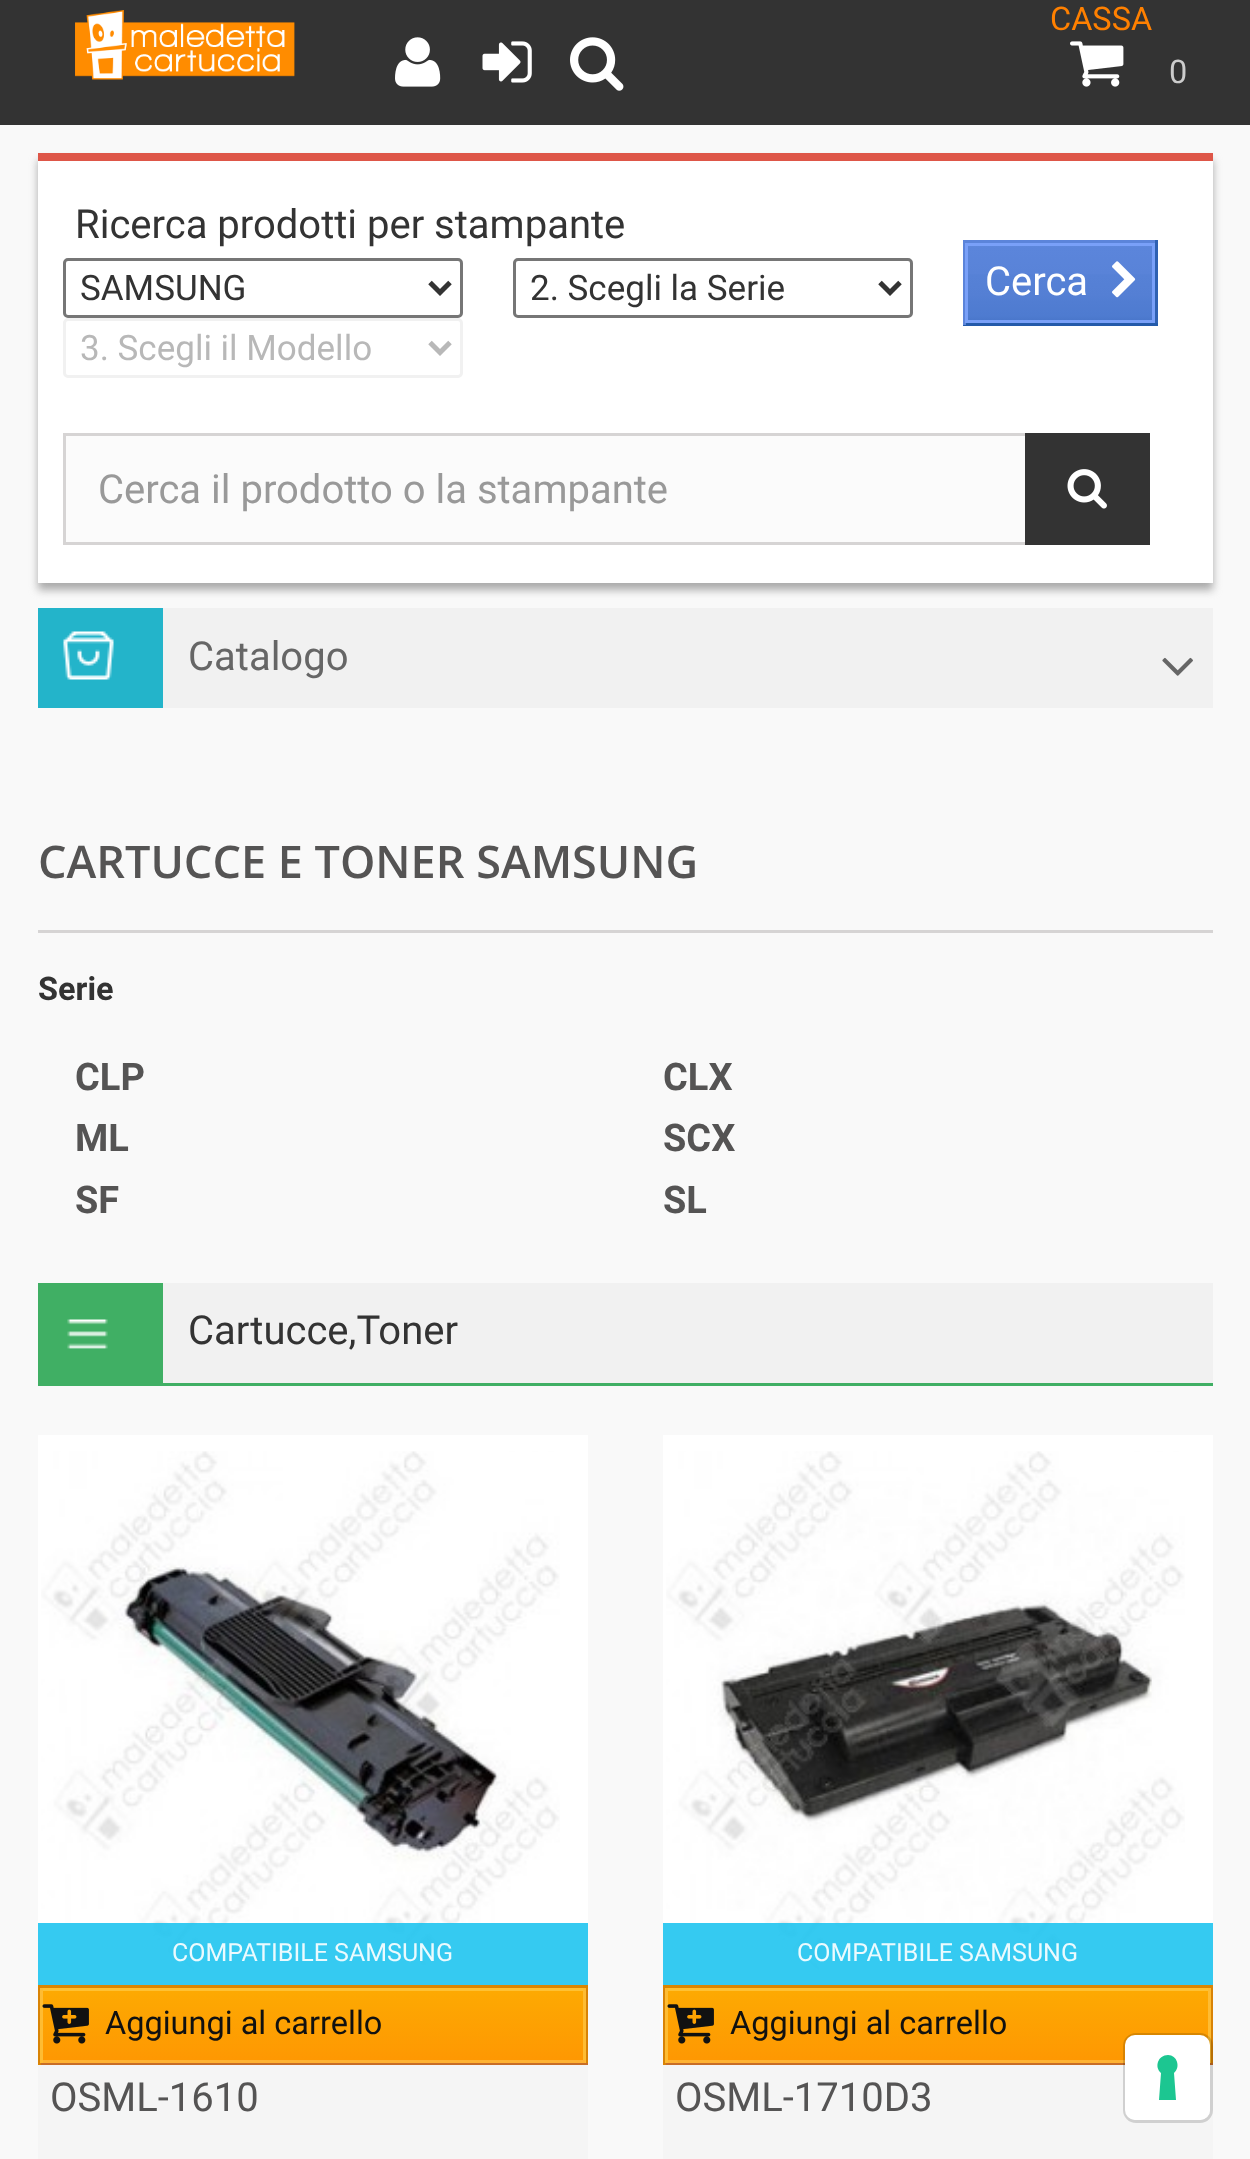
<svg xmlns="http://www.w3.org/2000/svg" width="1250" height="2159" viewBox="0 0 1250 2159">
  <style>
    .t1 { font: 32.5px Roboto; fill: #ff8000; }
    .t2 { font: 32.5px Roboto; fill: #ccc; }
    .t3 { font: 40px Roboto; fill: #333; }
    .t4 { font: 35px Roboto; fill: #333; }
    .t5 { font: 40px Roboto; fill: #fff; }
    .t6 { font: 35px Roboto; fill: #b8b8b8; }
    .t7 { font: 40px Roboto; fill: #999; }
    .t8 { font: 40px Roboto; fill: #666; }
    .t9 { font: 600 45px Open Sans; fill: #555454; }
    .t10 { font: bold 32.5px Roboto; fill: #333; }
    .t11 { font: bold 38px Roboto; fill: #555454; }
    .t12 { font: 25px Roboto; fill: #ebfafe; }
    .t13 { font: 32.5px Roboto; fill: #111; }
    .t14 { font: 40px Roboto; fill: #555454; }
  </style>
  <defs>
    <linearGradient id="g1" gradientUnits="userSpaceOnUse" x1="1060" y1="243" x2="1060" y2="323"><stop offset="0" stop-color="#6089df"/><stop offset="0.02" stop-color="#5f88de"/><stop offset="0.04" stop-color="#5d87dc"/><stop offset="0.06" stop-color="#5b85db"/><stop offset="0.38" stop-color="#5983d8"/><stop offset="0.4" stop-color="#5681d6"/><stop offset="0.66" stop-color="#547fd4"/><stop offset="0.74" stop-color="#517dd2"/><stop offset="0.91" stop-color="#4e7bd0"/><stop offset="0.94" stop-color="#4c79cd"/><stop offset="0.96" stop-color="#4a77cc"/><stop offset="1" stop-color="#4775c9"/></linearGradient>
    <linearGradient id="g2" gradientUnits="userSpaceOnUse" x1="313" y1="1988" x2="313" y2="2063"><stop offset="0" stop-color="#fdaa02"/><stop offset="1" stop-color="#fe9702"/></linearGradient>
    <linearGradient id="g3" gradientUnits="userSpaceOnUse" x1="938" y1="1988" x2="938" y2="2063"><stop offset="0" stop-color="#fdaa02"/><stop offset="1" stop-color="#fe9702"/></linearGradient>
  </defs>
  <rect width="100%" height="100%" fill="#f9f9f9"/>
  <rect x="0" y="0" width="1250" height="125" fill="#333"/>
  <image x="75" y="10" width="220" height="70" href="images/1.png"/>
  <image x="395" y="37" width="46" height="50" href="images/2.png"/>
  <image x="482" y="41" width="50" height="42" href="images/3.png"/>
  <image x="570" y="37" width="54" height="54" href="images/4.png"/>
  <text x="1050" y="30" class="t1">CASSA</text>
  <image x="1070" y="41" width="54" height="46" href="images/5.png"/>
  <text x="1169" y="83" class="t2">0</text>
  <rect x="38" y="160" width="1175" height="430" fill="#aaa" filter="blur(4px)"/>
  <rect x="38" y="161" width="1175" height="422" fill="#fff"/>
  <rect x="38" y="153" width="1175" height="8" fill="#de5648"/>
  <text x="75" y="238" class="t3">Ricerca prodotti per stampante</text>
  <rect x="64.5" y="259.5" width="397" height="57" rx="3.5" fill="none" stroke="#767676" stroke-width="3"/>
  <path d="M430 282.5L440 292.5L450 282.5" fill="none" stroke="#333" stroke-width="5"/>
  <text x="80" y="300" class="t4">SAMSUNG</text>
  <rect x="514.5" y="259.5" width="397" height="57" rx="3.5" fill="none" stroke="#767676" stroke-width="3"/>
  <path d="M880 282.5L890 292.5L900 282.5" fill="none" stroke="#333" stroke-width="5"/>
  <text x="530" y="300" class="t4">2. Scegli la Serie</text>
  <rect x="968" y="246" width="184" height="74" fill="url(#g1)"/>
  <rect x="963" y="240" width="195" height="3" fill="#5b84da"/>
  <rect x="1155" y="240" width="3" height="85" fill="#2f61b2"/>
  <rect x="963" y="323" width="195" height="3" fill="#235aaa"/>
  <rect x="963" y="240" width="3" height="85" fill="#5b84da"/>
  <rect x="966.5" y="244.5" width="187" height="77" fill="none" stroke="#79a0f8" stroke-width="3"/>
  <text x="985" y="295" class="t5">Cerca</text>
  <image x="1112" y="261" width="24" height="37" href="images/6.png"/>
  <rect x="64.5" y="319.5" width="397" height="57" rx="3.5" fill="none" stroke="#f1f1f1" stroke-width="3"/>
  <path d="M430 342.5L440 352.5L450 342.5" fill="none" stroke="#b8b8b8" stroke-width="5"/>
  <text x="80" y="360" class="t6">3. Scegli il Modello</text>
  <rect x="66" y="436" width="959" height="106" fill="#fbfbfb"/>
  <rect x="64.5" y="434.5" width="1084" height="109" fill="none" stroke="#d6d4d4" stroke-width="3"/>
  <text x="98" y="503" class="t7">Cerca il prodotto o la stampante</text>
  <rect x="1025" y="433" width="125" height="112" fill="#333"/>
  <image x="1067" y="469" width="40" height="40" href="images/7.png"/>
  <rect x="38" y="608" width="125" height="100" fill="#23b4ca"/>
  <image x="63" y="631" width="51" height="49" href="images/8.png"/>
  <rect x="163" y="608" width="1050" height="100" fill="#f1f1f1"/>
  <text x="188" y="670" class="t8">Catalogo</text>
  <image x="1162" y="657" width="31" height="19" href="images/9.png"/>
  <text x="38" y="878" class="t9">CARTUCCE E TONER SAMSUNG</text>
  <rect x="38" y="930" width="1175" height="3" fill="#d6d4d4"/>
  <text x="38" y="1000" class="t10">Serie</text>
  <text x="75" y="1090" class="t11">CLP</text>
  <text x="663" y="1090" class="t11">CLX</text>
  <text x="75" y="1151" class="t11">ML</text>
  <text x="663" y="1151" class="t11">SCX</text>
  <text x="75" y="1213" class="t11">SF</text>
  <text x="663" y="1213" class="t11">SL</text>
  <rect x="38" y="1283" width="125" height="100" fill="#40af64"/>
  <image x="67" y="1319" width="41" height="30" href="images/10.png"/>
  <rect x="38" y="1383" width="1175" height="3" fill="#40af64"/>
  <rect x="163" y="1283" width="1050" height="100" fill="#f1f1f1"/>
  <text x="188" y="1344" class="t3">Cartucce,Toner</text>
  <rect x="38" y="1435" width="550" height="550" fill="#fff"/>
  <image x="41" y="1451" width="519" height="520" href="images/11.png"/>
  <rect x="38" y="1923" width="550" height="62" fill="#1fc4efe6"/>
  <text x="172" y="1961" class="t12">COMPATIBILE SAMSUNG</text>
  <rect x="43" y="1991" width="540" height="69" fill="url(#g2)"/>
  <rect x="38" y="1985" width="550" height="3" fill="#db8600"/>
  <rect x="585" y="1985" width="3" height="80" fill="#d98305"/>
  <rect x="38" y="2063" width="550" height="2" fill="#c86d26"/>
  <rect x="38" y="1985" width="3" height="80" fill="#d98305"/>
  <rect x="40" y="1988" width="545" height="3" fill="#fec133"/>
  <rect x="583" y="1988" width="3" height="75" fill="#febc33"/>
  <rect x="40" y="2060" width="545" height="3" fill="#feb233"/>
  <rect x="40" y="1988" width="3" height="75" fill="#febc33"/>
  <image x="42" y="2004" width="47" height="40" href="images/12.png"/>
  <text x="105" y="2034" class="t13">Aggiungi al carrello</text>
  <rect x="38" y="2065" width="550" height="94" fill="#f5f5f5"/>
  <text x="50" y="2111" class="t14">OSML-1610</text>
  <rect x="663" y="1435" width="550" height="550" fill="#fff"/>
  <image x="666" y="1451" width="519" height="520" href="images/13.png"/>
  <rect x="663" y="1923" width="550" height="62" fill="#1fc4efe6"/>
  <text x="797" y="1961" class="t12">COMPATIBILE SAMSUNG</text>
  <rect x="668" y="1991" width="540" height="69" fill="url(#g3)"/>
  <rect x="663" y="1985" width="550" height="3" fill="#db8600"/>
  <rect x="1210" y="1985" width="3" height="80" fill="#d98305"/>
  <rect x="663" y="2063" width="550" height="2" fill="#c86d26"/>
  <rect x="663" y="1985" width="3" height="80" fill="#d98305"/>
  <rect x="665" y="1988" width="545" height="3" fill="#fec133"/>
  <rect x="1208" y="1988" width="3" height="75" fill="#febc33"/>
  <rect x="665" y="2060" width="460" height="3" fill="#feb233"/>
  <rect x="665" y="1988" width="3" height="75" fill="#febc33"/>
  <image x="667" y="2004" width="47" height="40" href="images/12.png"/>
  <text x="730" y="2034" class="t13">Aggiungi al carrello</text>
  <rect x="663" y="2065" width="550" height="94" fill="#f5f5f5"/>
  <text x="675" y="2111" class="t14">OSML-1710D3</text>
  <rect x="1124.5" y="2034.5" width="87" height="87" rx="11.5" fill="none" stroke="#00000026" stroke-width="3"/>
  <rect x="1125" y="2035" width="85" height="85" rx="10" fill="#fff"/>
  <path d="M1168 2055C1177 2055 1181 2067 1174 2073L1176 2100H1159L1161 2073C1154 2067 1158 2055 1168 2055Z" fill="#1cc691" fill-rule="evenodd"/>
</svg>
